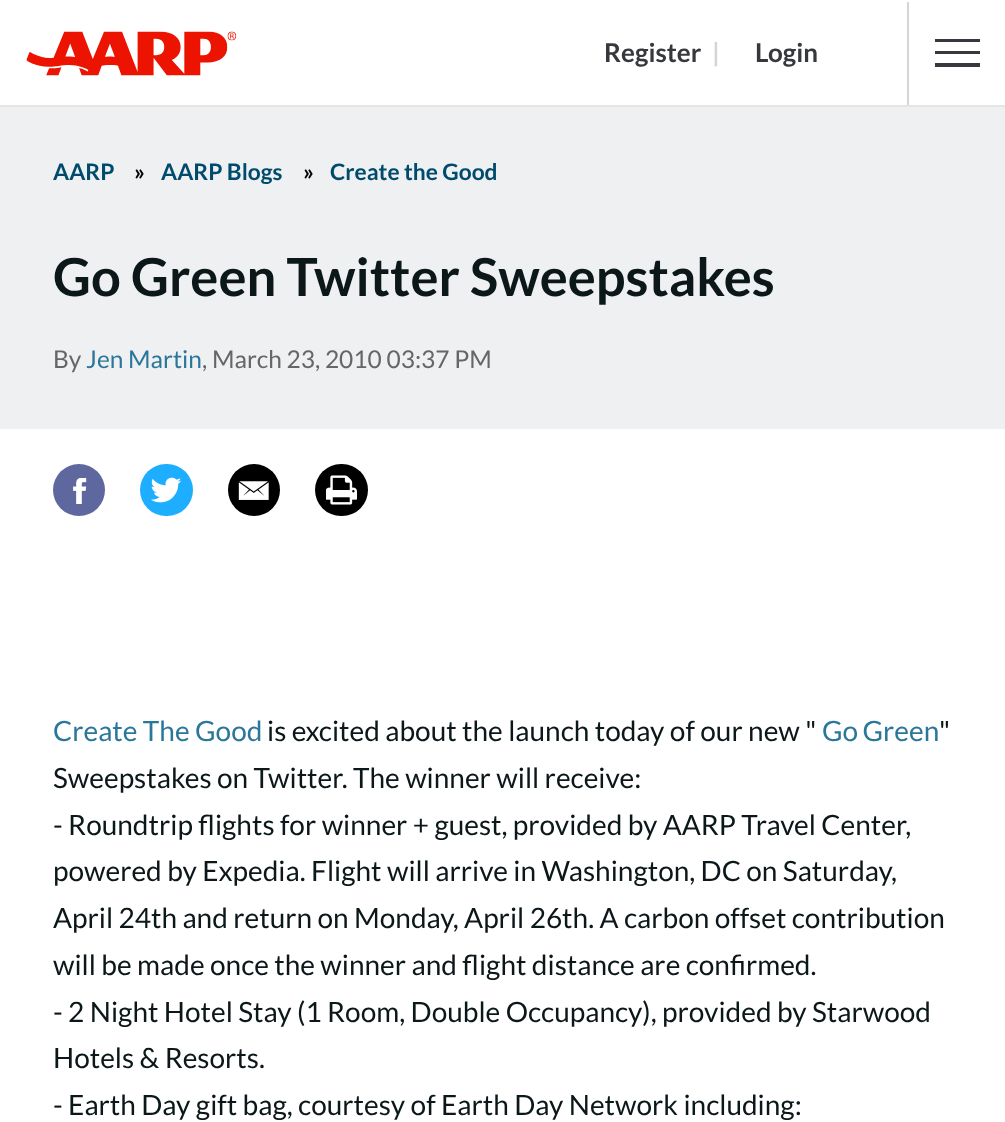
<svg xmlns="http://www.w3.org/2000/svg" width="1005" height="1122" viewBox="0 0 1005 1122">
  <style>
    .t1 { font: bold 26px Lato; fill: #37383d; }
    .t2 { font: bold 26px Lato; fill: #d5d5d5; }
    .t3 { font: bold 22.75px Lato; fill: #004b6d; }
    .t4 { font: bold 22.75px Lato; fill: #000; }
    .t5 { font: bold 52.5px Lato; fill: #0c171a; }
    .t6 { font: 24.5px Lato; fill: #666; }
    .t7 { font: 24.5px Lato; fill: #2b779b; }
    .t8 { font: 28px Lato; fill: #2b779b; }
    .t9 { font: 28px Lato; fill: #0c171a; }
  </style>
  <rect width="100%" height="100%" fill="#fff"/>
  <rect x="0" y="105" width="1005" height="2" fill="#e5e5e5"/>
  <image x="26" y="31" width="210" height="45" href="images/1.png"/>
  <text x="604" y="62" class="t1">Register</text>
  <text x="712" y="62" class="t2">|</text>
  <rect x="907" y="2" width="2" height="103" fill="#d5d5d5"/>
  <text x="755" y="62" class="t1">Login</text>
  <rect x="935" y="39" width="45" height="3" fill="#37383d"/>
  <rect x="935" y="51" width="45" height="3" fill="#37383d"/>
  <rect x="935" y="63" width="45" height="4" fill="#37383d"/>
  <rect x="0" y="107" width="1005" height="322" fill="#eef0f1"/>
  <text x="53" y="180" class="t3">AARP</text>
  <text x="134" y="180" class="t4">»</text>
  <text x="161" y="180" class="t3">AARP Blogs</text>
  <text x="303" y="180" class="t4">»</text>
  <text x="330" y="180" class="t3">Create the Good</text>
  <text x="53" y="296" class="t5">Go Green Twitter Sweepstakes</text>
  <text x="53" y="368" class="t6">By</text>
  <text x="86" y="368" class="t7">Jen Martin</text>
  <text x="202" y="368" class="t6">, March 23, 2010 03:37 PM</text>
  <circle cx="79" cy="490" r="26" fill="#5e689f"/>
  <image x="73" y="478" width="14" height="26" href="images/2.png"/>
  <rect x="140" y="464" width="53" height="52" rx="26" fill="#1eaeff"/>
  <image x="151" y="477" width="31" height="26" href="images/3.png"/>
  <circle cx="254" cy="490" r="26" fill="#000"/>
  <image x="238" y="481" width="31" height="19" href="images/4.png"/>
  <rect x="315" y="464" width="53" height="52" rx="26" fill="#000"/>
  <image x="326" y="475" width="31" height="30" href="images/5.png"/>
  <text x="53" y="741" class="t8">Create The Good</text>
  <text x="267" y="741" class="t9">is excited about the launch today of our new "</text>
  <text x="822" y="741" word-spacing="-1" class="t8">Go Green</text>
  <text x="939" y="741" class="t9">"</text>
  <text x="53" y="788" class="t9">Sweepstakes on Twitter. The winner will receive:</text>
  <text x="53" y="835" class="t9">- Roundtrip flights for winner + guest, provided by AARP Travel Center,</text>
  <text x="53" y="881" class="t9">powered by Expedia. Flight will arrive in Washington, DC on Saturday,</text>
  <text x="53" y="928" class="t9">April 24th and return on Monday, April 26th. A carbon offset contribution</text>
  <text x="53" y="975" class="t9">will be made once the winner and flight distance are confirmed.</text>
  <text x="53" y="1022" class="t9">- 2 Night Hotel Stay (1 Room, Double Occupancy), provided by Starwood</text>
  <text x="53" y="1068" class="t9">Hotels &amp; Resorts.</text>
  <text x="53" y="1115" class="t9">- Earth Day gift bag, courtesy of Earth Day Network including:</text>
</svg>
